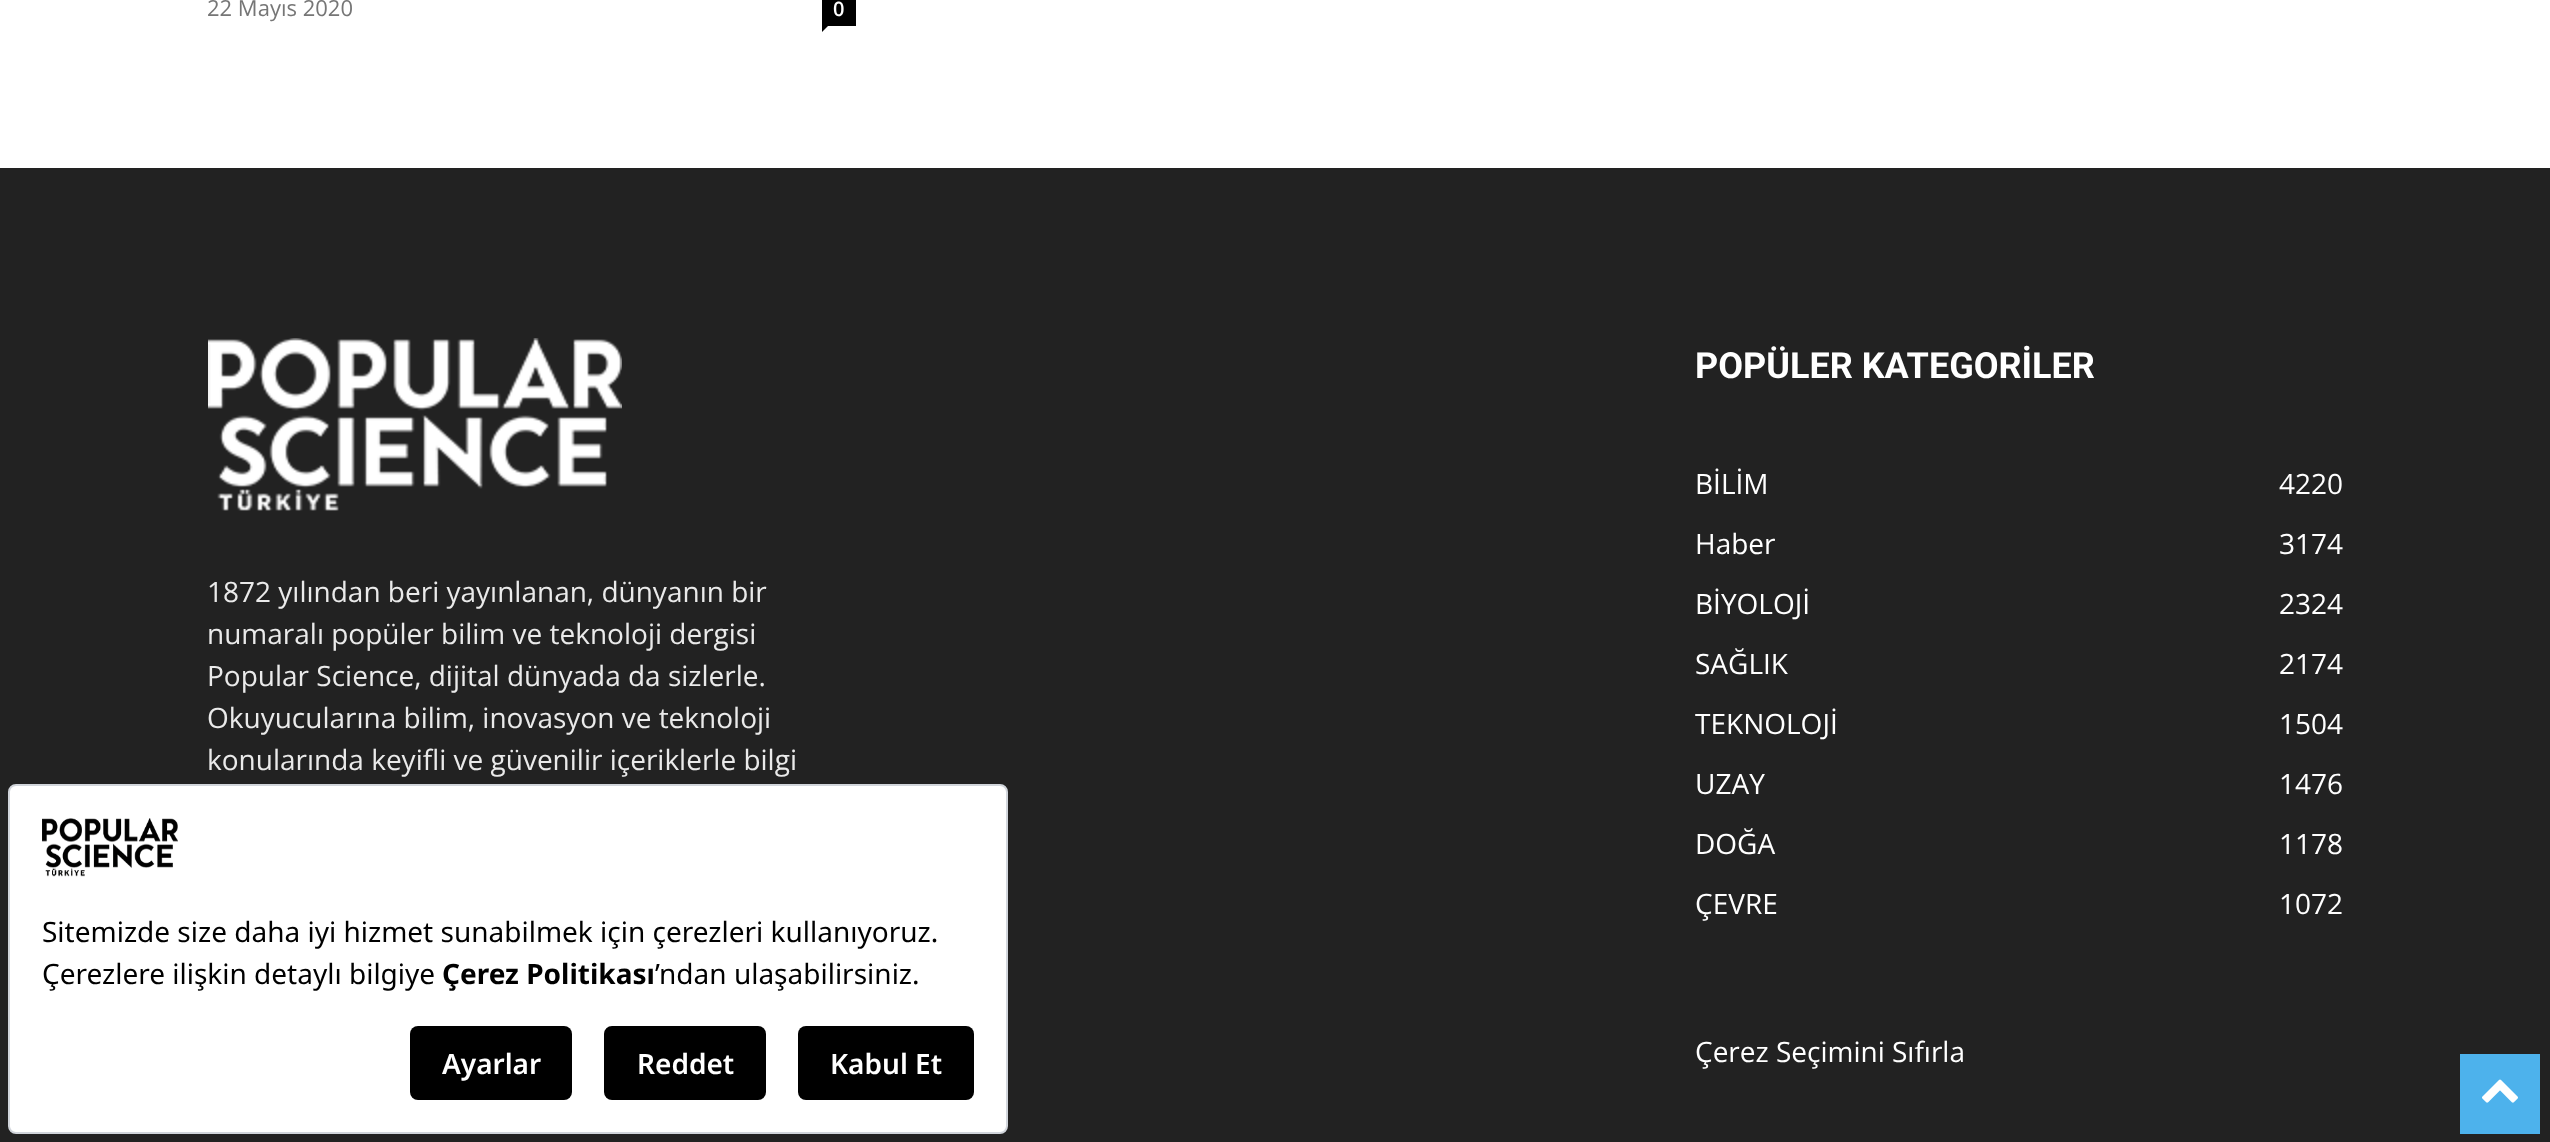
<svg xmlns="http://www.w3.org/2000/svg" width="2550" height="1142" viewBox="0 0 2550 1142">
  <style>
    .t1 { font: 22px Open Sans; fill: #767676; }
    .t2 { font: 600 20px Open Sans; fill: #fff; }
    .t3 { font: 28px Open Sans; fill: #eaeaea; }
    .t4 { font: bold 36px Roboto; fill: #fff; }
    .t5 { font: 28px Open Sans; fill: #fff; }
    .t6 { font: 28px Noto Sans; fill: #000; }
    .t7 { font: bold 28px Noto Sans; fill: #000; }
    .t8 { font: 600 28px Noto Sans; fill: #fff; }
  </style>
  <rect width="100%" height="100%" fill="#fff"/>
  <text x="207" y="16" class="t1">22 Mayıs 2020</text>
  <rect x="822" y="0" width="34" height="26" fill="#000"/>
  <text x="833" y="16" class="t2">0</text>
  <path d="M822 26H828L822 32Z" fill="#000"/>
  <rect x="0" y="168" width="2550" height="974" fill="#222"/>
  <image x="208" y="338" width="414" height="173" href="images/1.png"/>
  <text x="207" y="602" class="t3">1872 yılından beri yayınlanan, dünyanın bir</text>
  <text x="207" y="644" class="t3">numaralı popüler bilim ve teknoloji dergisi</text>
  <text x="207" y="686" class="t3">Popular Science, dijital dünyada da sizlerle.</text>
  <text x="207" y="728" class="t3">Okuyucularına bilim, inovasyon ve teknoloji</text>
  <text x="207" y="770" class="t3">konularında keyifli ve güvenilir içeriklerle bilgi</text>
  <text x="1695" y="378" class="t4">POPÜLER KATEGORİLER</text>
  <text x="1695" y="494" class="t5">BİLİM</text>
  <text x="2279" y="494" class="t5">4220</text>
  <text x="1695" y="554" class="t5">Haber</text>
  <text x="2279" y="554" class="t5">3174</text>
  <text x="1695" y="614" class="t5">BİYOLOJİ</text>
  <text x="2279" y="614" class="t5">2324</text>
  <text x="1695" y="674" class="t5">SAĞLIK</text>
  <text x="2279" y="674" class="t5">2174</text>
  <text x="1695" y="734" class="t5">TEKNOLOJİ</text>
  <text x="2279" y="734" class="t5">1504</text>
  <text x="1695" y="794" class="t5">UZAY</text>
  <text x="2279" y="794" class="t5">1476</text>
  <text x="1695" y="854" class="t5">DOĞA</text>
  <text x="2279" y="854" class="t5">1178</text>
  <text x="1695" y="914" class="t5">ÇEVRE</text>
  <text x="2279" y="914" class="t5">1072</text>
  <text x="1695" y="1062" class="t5">Çerez Seçimini Sıfırla</text>
  <rect x="9" y="785" width="998" height="348" rx="7" fill="#fff" stroke="#d1d5db" stroke-width="2"/>
  <image x="42" y="818" width="136" height="59" href="images/2.png"/>
  <text x="42" y="942" class="t6">Sitemizde size daha iyi hizmet sunabilmek için çerezleri kullanıyoruz.</text>
  <text x="42" y="984" class="t6">Çerezlere ilişkin detaylı bilgiye</text>
  <text x="442" y="984" class="t7">Çerez Politikası</text>
  <text x="655" y="984" class="t6">’ndan ulaşabilirsiniz.</text>
  <rect x="410" y="1026" width="162" height="74" rx="8" fill="#000"/>
  <text x="442" y="1074" class="t8">Ayarlar</text>
  <rect x="604" y="1026" width="162" height="74" rx="8" fill="#000"/>
  <text x="637" y="1074" class="t8">Reddet</text>
  <rect x="798" y="1026" width="176" height="74" rx="8" fill="#000"/>
  <text x="830" y="1074" class="t8">Kabul Et</text>
  <rect x="2460" y="1054" width="80" height="80" fill="#4db2ec"/>
  <image x="2482" y="1079" width="36" height="24" href="images/3.png"/>
</svg>
